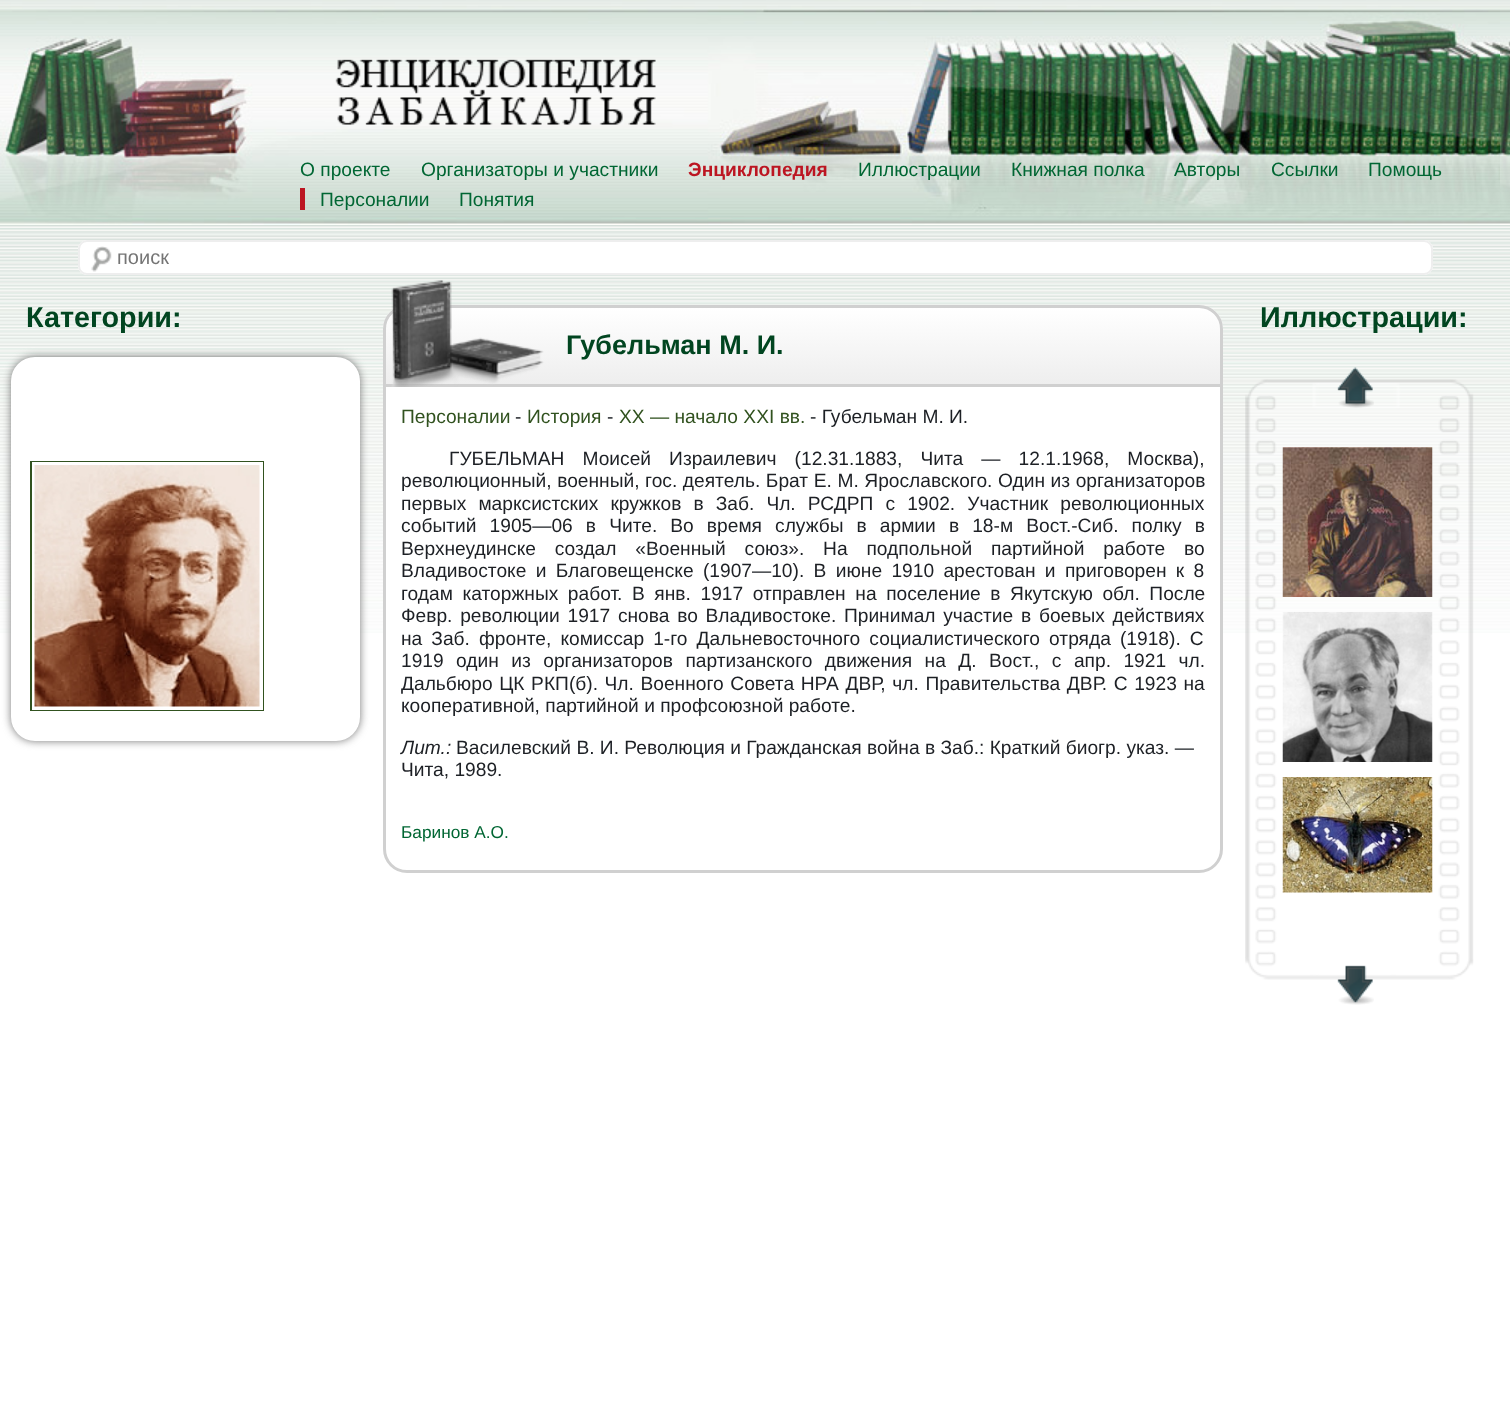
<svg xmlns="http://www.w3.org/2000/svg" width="1510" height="1422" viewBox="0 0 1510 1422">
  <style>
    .t1 { font: 19.2px Liberation Sans; fill: #063; }
    .t2 { font: bold 19.2px Liberation Sans; fill: #bc1622; }
    .t3 { font: 20px Liberation Sans; fill: #757575; }
    .t4 { font: bold 28.75px Liberation Sans; fill: #014520; }
    .t5 { font: bold 27px Liberation Sans; fill: #014520; }
    .t6 { font: 19.2px Liberation Sans; fill: #31521f; }
    .t7 { font: 19.2px Liberation Sans; fill: #1d2025; }
    .t8 { font: italic 19.2px Liberation Sans; fill: #1d2025; }
    .t9 { font: 17.25px Liberation Sans; fill: #063; }
  </style>
  <defs>
    <clipPath id="clip1"><path d="M407 305H1199C1212.5 305 1223 315.5 1223 329V387H383V329C383 315.5 393.5 305 407 305Z"/></clipPath>
    <linearGradient id="g1" gradientUnits="userSpaceOnUse" x1="386" y1="308" x2="386" y2="384"><stop offset="0" stop-color="#fff"/><stop offset="1" stop-color="#eee"/></linearGradient>
  </defs>
  <rect width="100%" height="100%" fill="#fff"/>
  <image x="0" y="0" width="1510" height="225" href="images/1.png"/>
  <image x="0" y="9" width="1500" height="216" href="images/2.png"/>
  <image x="335" y="59" width="321" height="66" href="images/3.png"/>
  <text x="300" y="176" class="t1">О проекте</text>
  <text x="421" y="176" class="t1">Организаторы и участники</text>
  <text x="688" y="176" class="t2">Энциклопедия</text>
  <text x="858" y="176" class="t1">Иллюстрации</text>
  <text x="1011" y="176" class="t1">Книжная полка</text>
  <text x="1174" y="176" class="t1">Авторы</text>
  <text x="1271" y="176" class="t1">Ссылки</text>
  <text x="1368" y="176" class="t1">Помощь</text>
  <rect x="300" y="188" width="5" height="22" fill="#bc1622"/>
  <text x="320" y="206" class="t1">Персоналии</text>
  <text x="459" y="206" class="t1">Понятия</text>
  <image x="0" y="225" width="1510" height="408" href="images/4.png"/>
  <rect x="78" y="240" width="1355" height="35" rx="9" fill="#fff"/>
  <image x="91" y="246" width="21" height="26" href="images/5.png"/>
  <rect x="79" y="241" width="1353" height="33" rx="8" fill="none" stroke="#eee" stroke-width="2"/>
  <text x="117" y="264" class="t3">поиск</text>
  <text x="26" y="327" class="t4">Категории:</text>
  <rect x="11" y="357" width="349" height="384" rx="24" fill="#777" filter="blur(4px)"/>
  <rect x="11" y="357" width="349" height="384" rx="24" fill="#fff"/>
  <rect x="31" y="462" width="232" height="248" fill="none" stroke="#31521f" stroke-width="2"/>
  <rect x="33.5" y="463.5" width="228" height="245" fill="none" stroke="#fff" stroke-width="3"/>
  <image x="34" y="465" width="226" height="242" href="images/6.png"/>
  <text x="1260" y="327" class="t4">Иллюстрации:</text>
  <image x="1245" y="379" width="229" height="601" href="images/7.png"/>
  <image x="1337" y="367" width="37" height="41" href="images/8.png"/>
  <image x="1282" y="447" width="151" height="150" href="images/9.png"/>
  <image x="1282" y="612" width="151" height="150" href="images/10.png"/>
  <image x="1282" y="777" width="151" height="116" href="images/11.png"/>
  <image x="1337" y="965" width="37" height="40" href="images/12.png"/>
  <path d="M384.5 381.5H1221.5V849C1221.5 861.5 1211.5 871.5 1199 871.5H407C394.5 871.5 384.5 861.5 384.5 849Z" fill="#fff" stroke="#d0d0d0" stroke-width="3"/>
  <g clip-path="url(#clip1)">
    <rect x="383" y="308" width="840" height="76" fill="url(#g1)"/>
  </g>
  <path d="M407 306.5H1199C1211.5 306.5 1221.5 316.5 1221.5 329V385.5H384.5V329C384.5 316.5 394.5 306.5 407 306.5Z" fill="none" stroke="#d0d0d0" stroke-width="3"/>
  <image x="391" y="280" width="153" height="107" href="images/13.png"/>
  <text x="566" y="354" class="t5">Губельман М. И.</text>
  <text x="401" y="423" class="t6">Персоналии</text>
  <text x="515" y="423" class="t7">-</text>
  <text x="527" y="423" class="t6">История</text>
  <text x="607" y="423" class="t7">-</text>
  <text x="619" y="423" class="t6">XX — начало XXI вв.</text>
  <text x="810" y="423" class="t7">- Губельман М. И.</text>
  <text x="449" y="465" word-spacing="12.75" class="t7">ГУБЕЛЬМАН Моисей Израилевич (12.31.1883, Чита — 12.1.1968, Москва),</text>
  <text x="401" y="487" word-spacing="0.25" class="t7">революционный, военный, гос. деятель. Брат Е. М. Ярославского. Один из организаторов</text>
  <text x="401" y="510" word-spacing="6.75" class="t7">первых марксистских кружков в Заб. Чл. РСДРП с 1902. Участник революционных</text>
  <text x="401" y="532" word-spacing="7.75" class="t7">событий 1905—06 в Чите. Во время службы в армии в 18-м Вост.-Сиб. полку в</text>
  <text x="401" y="555" word-spacing="13.5" class="t7">Верхнеудинске создал «Военный союз». На подпольной партийной работе во</text>
  <text x="401" y="577" word-spacing="4" class="t7">Владивостоке и Благовещенске (1907—10). В июне 1910 арестован и приговорен к 8</text>
  <text x="401" y="600" word-spacing="4.25" class="t7">годам каторжных работ. В янв. 1917 отправлен на поселение в Якутскую обл. После</text>
  <text x="401" y="622" word-spacing="2.4" class="t7">Февр. революции 1917 снова во Владивостоке. Принимал участие в боевых действиях</text>
  <text x="401" y="645" word-spacing="3.75" class="t7">на Заб. фронте, комиссар 1-го Дальневосточного социалистического отряда (1918). С</text>
  <text x="401" y="667" word-spacing="7.1" class="t7">1919 один из организаторов партизанского движения на Д. Вост., с апр. 1921 чл.</text>
  <text x="401" y="690" word-spacing="1.25" class="t7">Дальбюро ЦК РКП(б). Чл. Военного Совета НРА ДВР, чл. Правительства ДВР. С 1923 на</text>
  <text x="401" y="712" class="t7">кооперативной, партийной и профсоюзной работе.</text>
  <text x="401" y="754" class="t8">Лит.:</text>
  <text x="456" y="754" class="t7">Василевский В. И. Революция и Гражданская война в Заб.: Краткий биогр. указ. —</text>
  <text x="401" y="776" class="t7">Чита, 1989.</text>
  <text x="401" y="838" class="t9">Баринов А.О.</text>
</svg>
